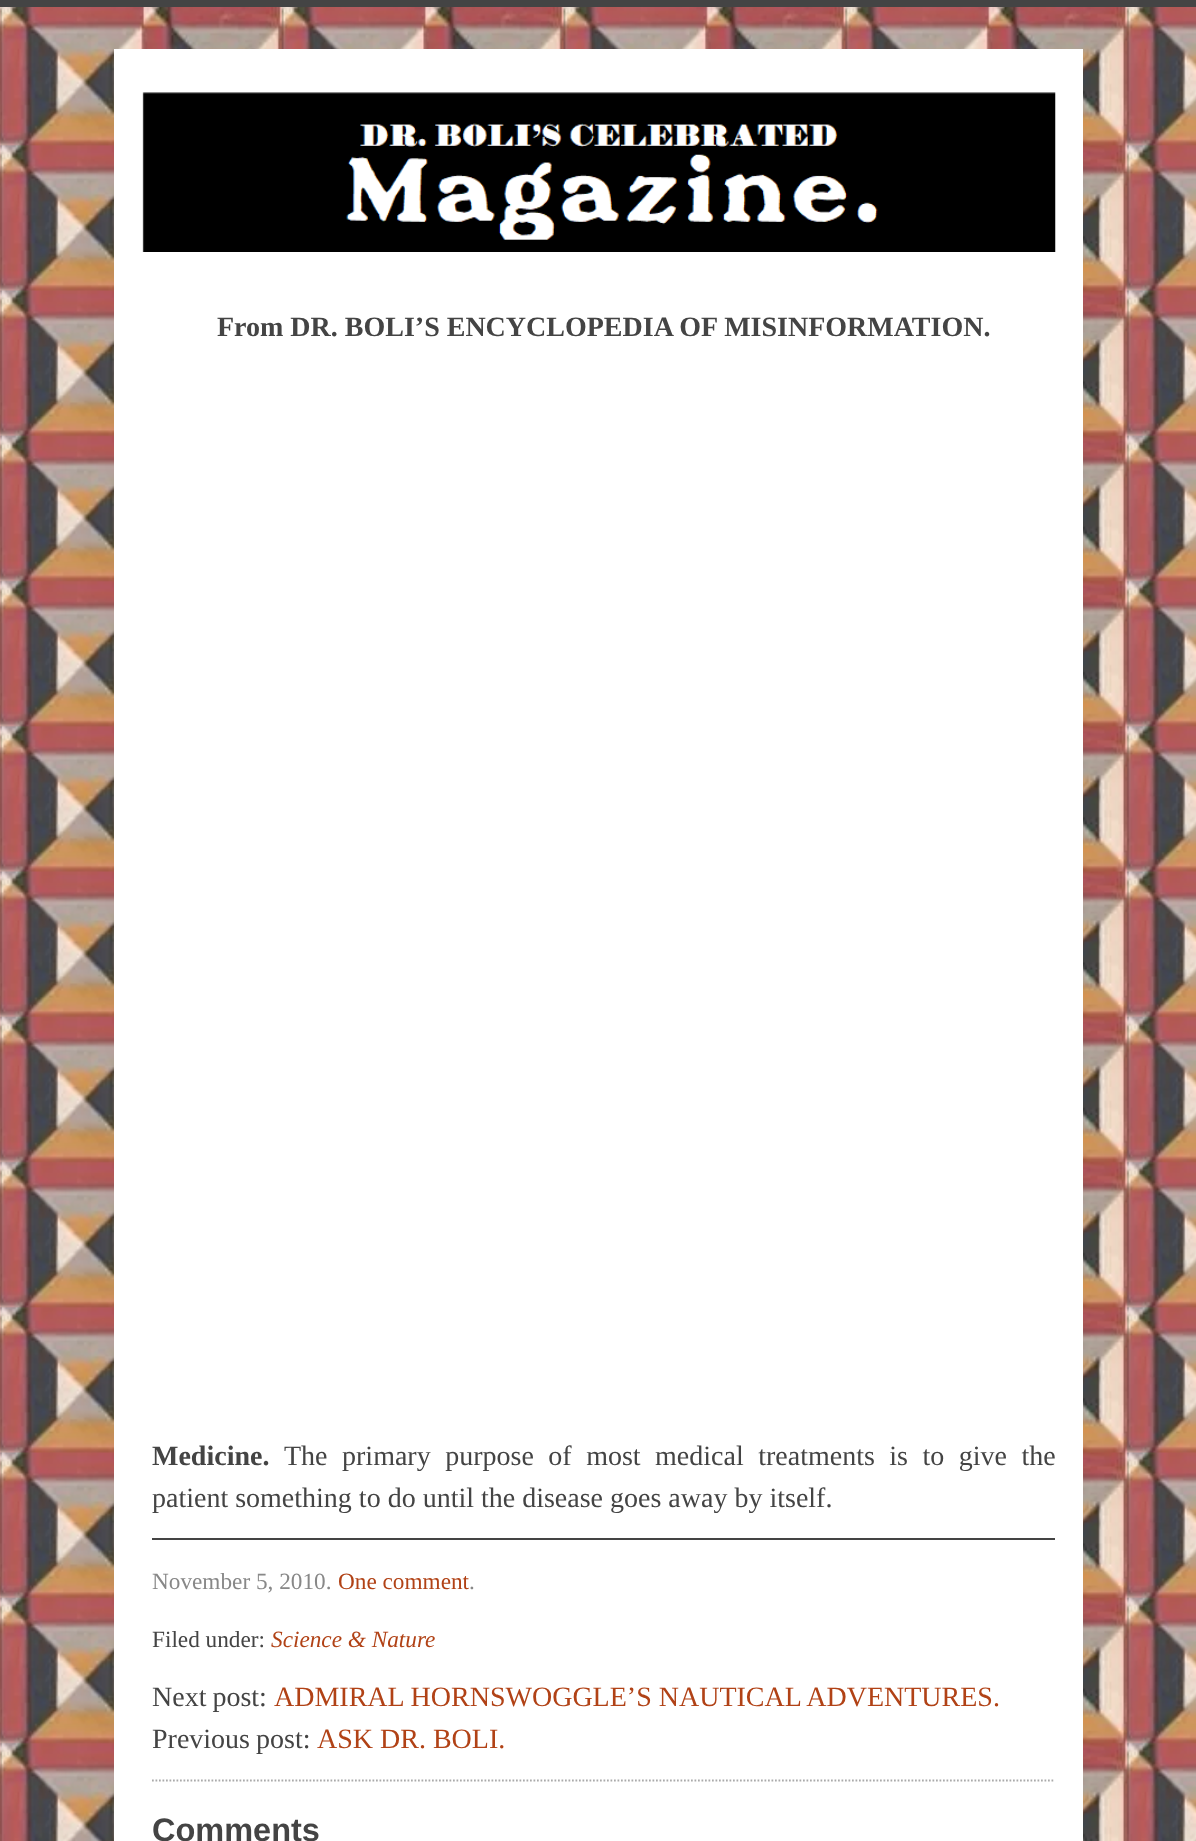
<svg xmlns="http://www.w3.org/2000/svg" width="1196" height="1841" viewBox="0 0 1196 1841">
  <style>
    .t1 { font: bold 28px Liberation Serif; fill: #444; }
    .t2 { font: 28px Liberation Serif; fill: #444; }
    .t3 { font: 23.25px Liberation Serif; fill: #888; }
    .t4 { font: 23.25px Liberation Serif; fill: #b14216; }
    .t5 { font: 23.25px Liberation Serif; fill: #444; }
    .t6 { font: italic 23.25px Liberation Serif; fill: #b14216; }
    .t7 { font: 28px Liberation Serif; fill: #b14216; }
    .t8 { font: bold 32.5px Liberation Sans; fill: #444; }
  </style>
  <rect width="100%" height="100%" fill="#fff"/>
  <image x="0" y="7" width="1196" height="1834" href="images/1.png"/>
  <rect x="0" y="0" width="1196" height="7" fill="#444"/>
  <rect x="114" y="49" width="969" height="1792" fill="#fff"/>
  <image x="142" y="92" width="914" height="160" href="images/2.png"/>
  <text x="217" y="336" class="t1">From DR. BOLI’S ENCYCLOPEDIA OF MISINFORMATION.</text>
  <text x="152" y="1465" class="t1">Medicine.</text>
  <text x="284" y="1465" word-spacing="7.5" class="t2">The primary purpose of most medical treatments is to give the</text>
  <text x="152" y="1507" class="t2">patient something to do until the disease goes away by itself.</text>
  <rect x="152" y="1538" width="903" height="2" fill="#444"/>
  <text x="152" y="1589" class="t3">November 5, 2010.</text>
  <text x="338" y="1589" class="t4">One comment</text>
  <text x="469" y="1589" class="t3">.</text>
  <text x="152" y="1647" class="t5">Filed under:</text>
  <text x="271" y="1647" class="t6">Science &amp; Nature</text>
  <text x="152" y="1706" word-spacing="-1" class="t2">Next post:</text>
  <text x="274" y="1706" class="t7">ADMIRAL HORNSWOGGLE’S NAUTICAL ADVENTURES.</text>
  <text x="152" y="1748" word-spacing="-1" class="t2">Previous post:</text>
  <text x="317" y="1748" class="t7">ASK DR. BOLI.</text>
  <path d="M152 1780.5H1055" fill="none" stroke="#aaa" stroke-width="1.8" stroke-dasharray="1.75 1.75"/>
  <text x="152" y="1841" class="t8">Comments</text>
</svg>
